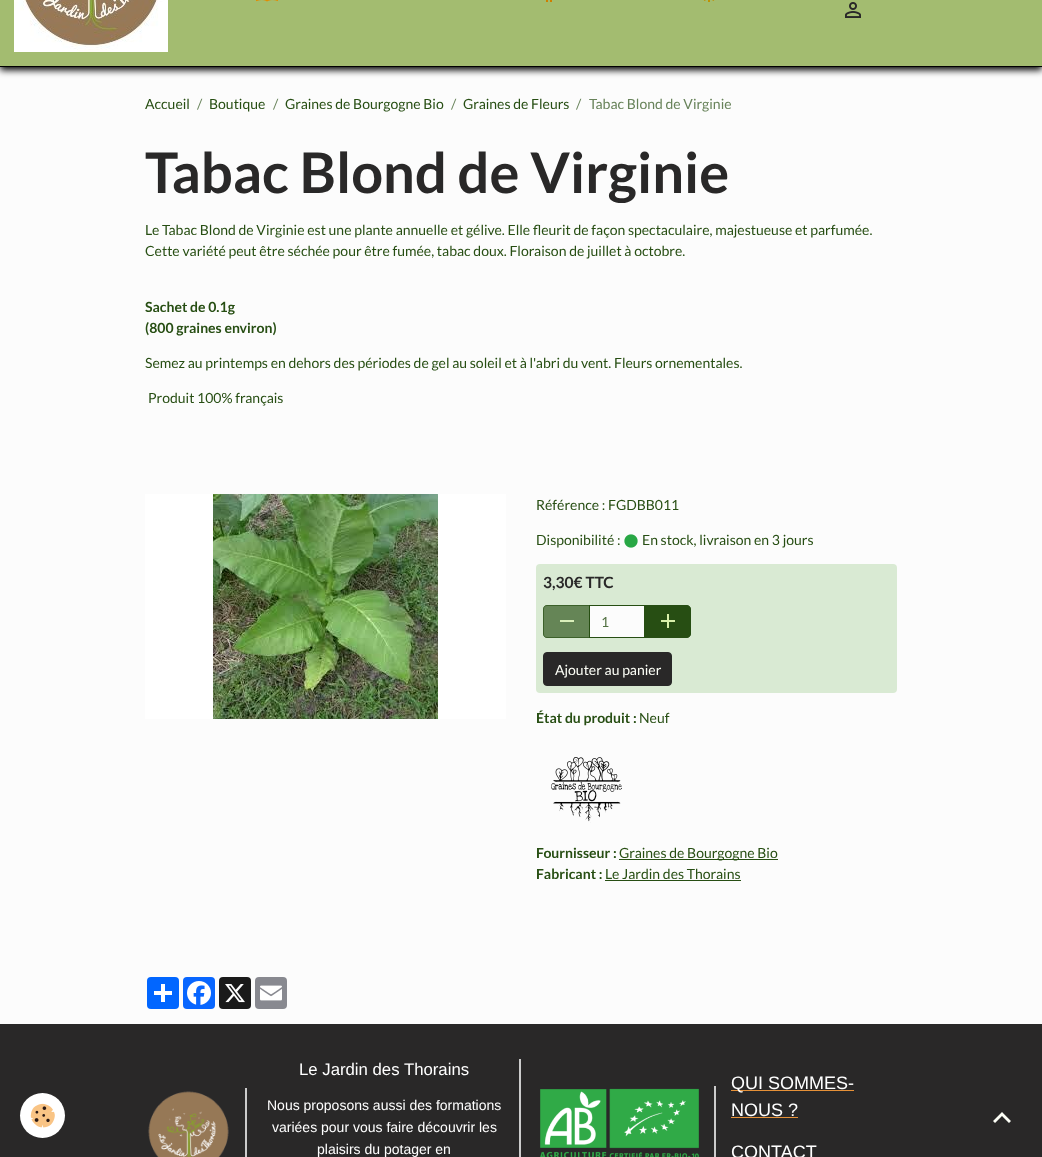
<svg xmlns="http://www.w3.org/2000/svg" width="1042" height="1157" viewBox="0 0 1042 1157">
  <style>
    .t1 { font: 14px Lato; fill: #274e13; }
    .t2 { font: 14px Lato; fill: #68835a; }
    .t3 { font: bold 56px Lato; fill: #292828; }
    .t4 { font: bold 14px Lato; fill: #274e13; }
    .t5 { font: bold 15.5px Lato; fill: #292828; }
    .t6 { font: 14px Lato; fill: #527142; }
    .t7 { font: 14px Lato; fill: #fdfff7; }
    .t8 { font: 16.75px Liberation Sans; fill: #fff; }
    .t9 { font: 14px Liberation Sans; fill: #fff; }
    .t10 { font: 18px Liberation Sans; fill: #fff; }
  </style>
  <rect width="100%" height="100%" fill="#292828"/>
  <rect x="0" y="67" width="1042" height="957" fill="#fcfcfc"/>
  <rect x="0" y="-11" width="1042" height="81" fill="#000" filter="blur(3.5px)"/>
  <rect x="0" y="0" width="1042" height="66" fill="#a3bc70"/>
  <rect x="0" y="66" width="1042" height="1" fill="#000"/>
  <image x="14" y="0" width="154" height="52" href="images/1.png"/>
  <image x="256" y="0" width="22" height="2" href="images/2.png"/>
  <image x="546" y="0" width="6" height="2" href="images/3.png"/>
  <image x="703" y="0" width="12" height="2" href="images/4.png"/>
  <image x="845" y="2" width="16" height="16" href="images/5.png"/>
  <text x="145" y="109" class="t1">Accueil</text>
  <text x="197" y="109" class="t2">/</text>
  <text x="209" y="109" class="t1">Boutique</text>
  <text x="273" y="109" class="t2">/</text>
  <text x="285" y="109" class="t1">Graines de Bourgogne Bio</text>
  <text x="451" y="109" class="t2">/</text>
  <text x="463" y="109" class="t1">Graines de Fleurs</text>
  <text x="576" y="109" class="t2">/</text>
  <text x="589" y="109" class="t2">Tabac Blond de Virginie</text>
  <text x="145" y="193" class="t3">Tabac Blond de Virginie</text>
  <text x="145" y="235" class="t1">Le Tabac Blond de Virginie est une plante annuelle et gélive. Elle fleurit de façon spectaculaire, majestueuse et parfumée.</text>
  <text x="145" y="256" class="t1">Cette variété peut être séchée pour être fumée, tabac doux. Floraison de juillet à octobre.</text>
  <text x="145" y="312" class="t4">Sachet de 0.1g</text>
  <text x="145" y="333" class="t4">(800 graines environ)</text>
  <text x="145" y="368" class="t1">Semez au printemps en dehors des périodes de gel au soleil et à l'abri du vent. Fleurs ornementales.</text>
  <text x="148" y="403" class="t1">Produit 100% français</text>
  <rect x="145" y="494" width="361" height="225" fill="#fff"/>
  <image x="213" y="494" width="225" height="225" href="images/6.png"/>
  <text x="536" y="510" class="t1">Référence : FGDBB011</text>
  <text x="536" y="545" class="t1">Disponibilité :</text>
  <image x="624" y="534" width="14" height="14" href="images/7.png"/>
  <text x="642" y="545" class="t1">En stock, livraison en 3 jours</text>
  <rect x="536" y="564" width="361" height="129" rx="4" fill="#d9ead3"/>
  <text x="543" y="588" class="t5">3,30€ TTC</text>
  <rect x="589.5" y="605.5" width="55" height="32" fill="#fcfcfc" stroke="#274e13"/>
  <path d="M547 605H590V638H547C545 638 543 636 543 634V609C543 607 545 605 547 605Z" fill="#274e13a6"/>
  <path d="M547 605.5H589.5V637.5H547C545 637.5 543.5 636 543.5 634V609C543.5 607 545 605.5 547 605.5Z" fill="none" stroke="#274e13a6"/>
  <rect x="560" y="620" width="14" height="2" fill="#daefba"/>
  <text x="601" y="627" class="t6">1</text>
  <path d="M644.5 605.5H687C689 605.5 690.5 607 690.5 609V634C690.5 636 689 637.5 687 637.5H644.5Z" fill="#274e13" stroke="#274e13"/>
  <image x="661" y="614" width="14" height="14" href="images/8.png"/>
  <rect x="543.5" y="652.5" width="128" height="33" rx="3.5" fill="#292828" stroke="#292828"/>
  <text x="555" y="675" class="t7">Ajouter au panier</text>
  <text x="536" y="723" class="t4">État du produit :</text>
  <text x="639" y="723" class="t1">Neuf</text>
  <image x="551" y="757" width="71" height="66" href="images/9.png"/>
  <text x="536" y="858" class="t4">Fournisseur :</text>
  <rect x="619" y="859" width="159" height="1" fill="#274e13"/>
  <text x="619" y="858" class="t1">Graines de Bourgogne Bio</text>
  <text x="536" y="879" class="t4">Fabricant :</text>
  <text x="605" y="879" class="t1">Le Jardin des Thorains</text>
  <rect x="605" y="880" width="136" height="1" fill="#274e13"/>
  <rect x="147" y="977" width="32" height="32" rx="4" fill="#0166ff"/>
  <rect x="161" y="984" width="4" height="18" fill="#fff"/>
  <rect x="154" y="991" width="18" height="4" fill="#fff"/>
  <rect x="183" y="977" width="32" height="32" rx="4" fill="#0866ff"/>
  <image x="187" y="981" width="24" height="24" href="images/10.png"/>
  <rect x="219" y="977" width="32" height="32" rx="4" fill="#1a1a1a"/>
  <image x="225" y="984" width="20" height="19" href="images/11.png"/>
  <rect x="255" y="977" width="32" height="32" rx="4" fill="#888990"/>
  <image x="260" y="985" width="22" height="16" href="images/12.png"/>
  <circle cx="42.5" cy="1115.5" r="22.5" fill="#fff"/>
  <image x="30" y="1103" width="25" height="25" href="images/13.png"/>
  <image x="148" y="1091" width="81" height="66" href="images/14.png"/>
  <rect x="245" y="1088" width="2" height="69" fill="#ccc"/>
  <text x="299" y="1075" class="t8">Le Jardin des Thorains</text>
  <text x="267" y="1110" class="t9">Nous proposons aussi des formations</text>
  <text x="272" y="1132" class="t9">variées pour vous faire découvrir les</text>
  <text x="317" y="1154" class="t9">plaisirs du potager en</text>
  <rect x="519" y="1059" width="2" height="98" fill="#ccc"/>
  <image x="540" y="1088" width="159" height="69" href="images/15.png"/>
  <rect x="714" y="1086" width="2" height="71" fill="#ccc"/>
  <rect x="731" y="1090" width="123" height="1" fill="#e69138"/>
  <text x="731" y="1089" class="t10">QUI SOMMES-</text>
  <text x="731" y="1116" class="t10">NOUS ?</text>
  <rect x="731" y="1117" width="67" height="1" fill="#e69138"/>
  <text x="731" y="1158" class="t10">CONTACT</text>
  <path d="M1002 1112L1011 1121L1009 1123L1002 1116L995 1123L993 1121Z" fill="#fdfff7"/>
</svg>
